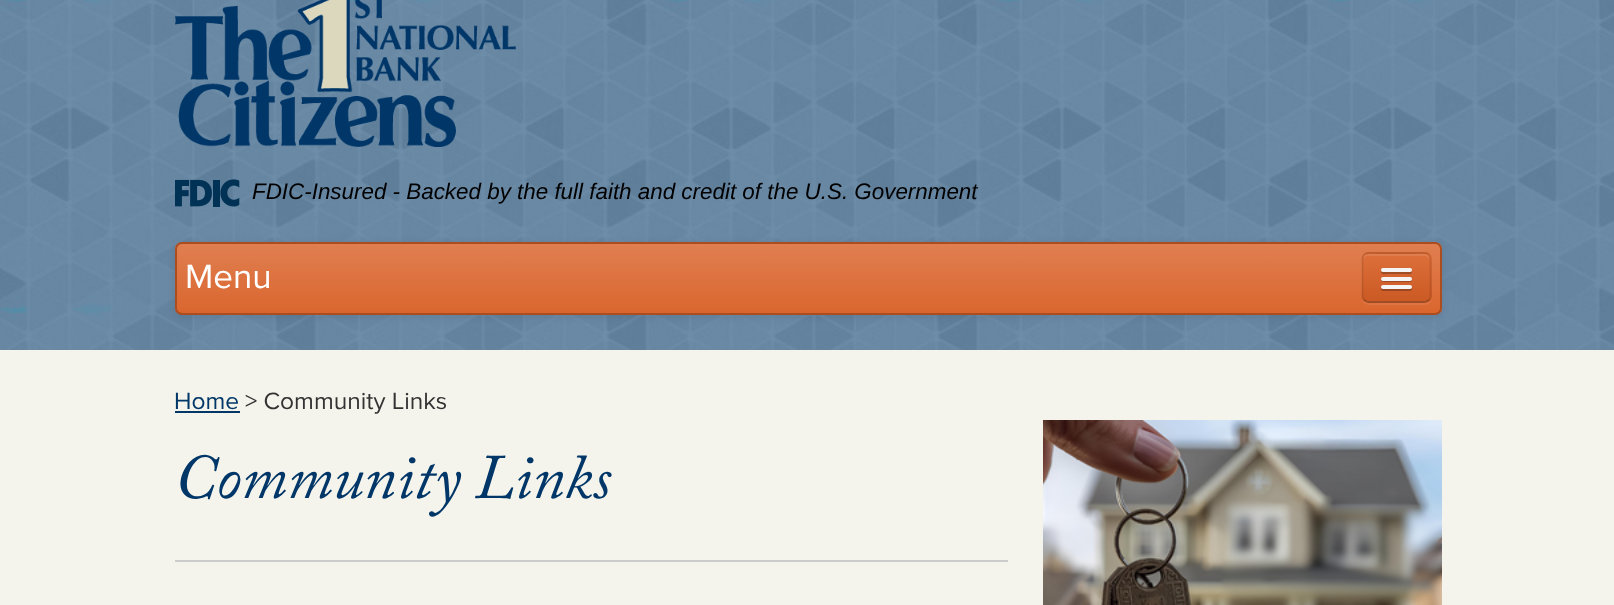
<svg xmlns="http://www.w3.org/2000/svg" width="1614" height="605" viewBox="0 0 1614 605">
  <style>
    .t1 { font: italic 22.4px Liberation Sans; fill: #000; }
    .t2 { font: 35px Proxima Nova; fill: #fff; }
    .t3 { font: 24.5px Proxima Nova; fill: #003768; }
    .t4 { font: 24.5px Proxima Nova; fill: #333; }
    .t5 { font: italic 63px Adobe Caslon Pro; fill: #003768; }
  </style>
  <defs>
    <clipPath id="clip1"><rect x="175" y="242" width="1267" height="73" rx="7"/></clipPath>
    <linearGradient id="g1" gradientUnits="userSpaceOnUse" x1="809" y1="243" x2="809" y2="313"><stop offset="0" stop-color="#e07f51"/><stop offset="1" stop-color="#da662e"/></linearGradient>
    <clipPath id="clip2"><rect x="1362" y="252" width="70" height="51" rx="7"/></clipPath>
    <linearGradient id="g2" gradientUnits="userSpaceOnUse" x1="1397" y1="254" x2="1397" y2="301"><stop offset="0" stop-color="#dc6f3b"/><stop offset="1" stop-color="#cb5a24"/></linearGradient>
  </defs>
  <rect width="100%" height="100%" fill="#f5f4ec"/>
  <image x="0" y="0" width="1614" height="350" href="images/1.png"/>
  <image x="175" y="0" width="341" height="147" href="images/2.png"/>
  <image x="175" y="179" width="65" height="28" href="images/3.png"/>
  <text x="252" y="199" class="t1">FDIC-Insured - Backed by the full faith and credit of the U.S. Government</text>
  <rect x="175" y="243" width="1267" height="74" rx="7" fill="#00000012" filter="blur(3.5px)"/>
  <g clip-path="url(#clip1)">
    <rect x="175" y="243" width="1267" height="70" fill="url(#g1)"/>
  </g>
  <rect x="176" y="243" width="1265" height="71" rx="6" fill="none" stroke="#ac4d1f" stroke-width="2"/>
  <text x="185" y="288" class="t2">Menu</text>
  <path d="M1362 298C1362 302 1365 305 1369 305H1425C1429 305 1432 302 1432 298V261L1431 258L1432 290C1432 304 1429 303 1415 303H1378C1373 303 1365 305 1362 298Z" fill="#ffffff12"/>
  <rect x="1362" y="252" width="70" height="51" rx="7" fill="#d56732"/>
  <g clip-path="url(#clip2)">
    <rect x="1362" y="254" width="70" height="47" fill="url(#g2)"/>
  </g>
  <path d="M1368 256H1424C1427 256 1430 258 1430 261C1430 252 1423 254 1416 254H1378C1370 254 1363 252 1363 261C1363 258 1366 256 1368 256Z" fill="#df7d4e"/>
  <path d="M1429 300C1427.5 301 1426 302 1424.5 302H1368.5C1367 302 1365.5 301 1364 300" fill="none" stroke="#00000040" stroke-width="1.8"/>
  <path d="M1364 300C1363 299 1362.5 297.5 1362.5 296V259C1362.5 257.5 1363 256 1364 254.5C1365.5 253.5 1367 253 1368.5 253H1424.5C1426 253 1427.5 253.5 1429 254.5C1430 256 1430.5 257.5 1430.5 259V296C1430.5 297.5 1430 299 1429 300" fill="none" stroke="#0000001a" stroke-width="1.8"/>
  <path d="M1381.5 271L1381 272.5C1381.5 275 1386.5 274 1387.5 274H1405.5C1406.5 274 1411.5 275 1412 272.5L1411.5 271C1410.5 271.5 1382.5 271.5 1381.5 271Z" fill="#a04d25"/>
  <rect x="1381" y="268" width="31" height="4" rx="2" fill="#f5f5f5"/>
  <path d="M1381 279.5C1380 283 1386.5 282 1387.5 282H1405.5C1406.5 282 1413 283 1412 279.5L1410.5 280H1382.5Z" fill="#9e4a23"/>
  <rect x="1381" y="277" width="31" height="4" rx="2" fill="#f5f5f5"/>
  <path d="M1381 288C1379.5 292 1386.5 291 1387.5 291H1405.5C1406.5 291 1413.5 292 1412 288L1410.5 288.5H1382.5Z" fill="#9b471f"/>
  <rect x="1381" y="285" width="31" height="4" rx="2" fill="#f5f5f5"/>
  <rect x="175" y="560" width="833" height="2" fill="#ccc"/>
  <text x="174" y="409" class="t3">Home</text>
  <rect x="175" y="411" width="65" height="2" fill="#003768"/>
  <text x="245" y="409" class="t4">&gt; Community Links</text>
  <text x="174" y="498" class="t5">Community Links</text>
  <image x="1043" y="420" width="399" height="185" href="images/4.png"/>
</svg>
